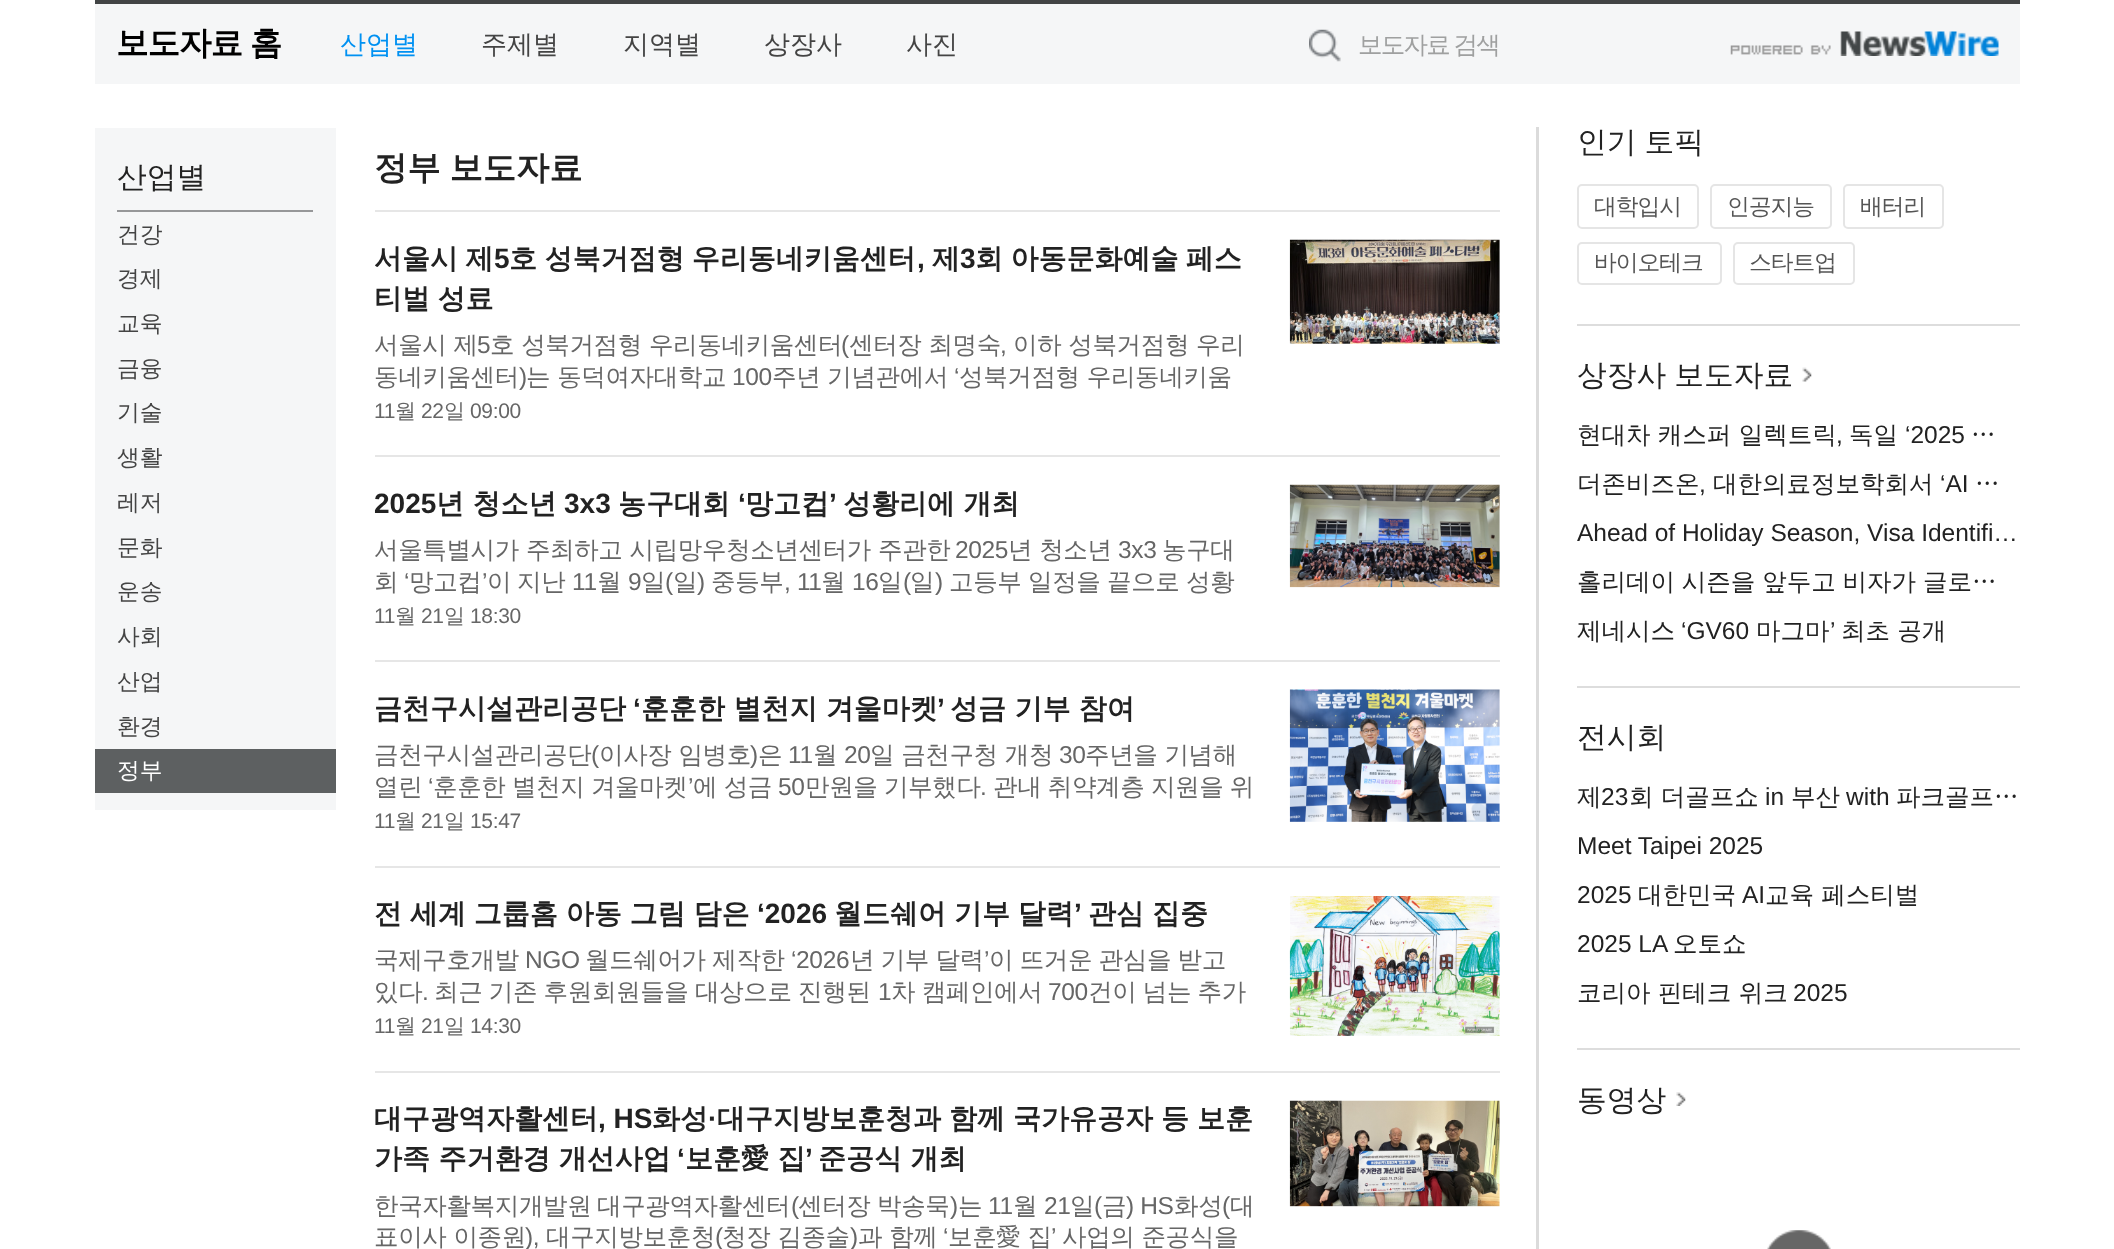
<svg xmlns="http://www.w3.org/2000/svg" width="2114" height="1249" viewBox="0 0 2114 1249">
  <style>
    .t1 { font: bold 32.5px WenQuanYi Zen Hei; letter-spacing: -1px; fill: #000; }
    .t2 { font: 500 26px WenQuanYi Zen Hei; fill: #0091f2; }
    .t3 { font: 500 26px WenQuanYi Zen Hei; fill: #444; }
    .t4 { font: 500 24.5px WenQuanYi Zen Hei; letter-spacing: -1.75px; fill: #9fa0a0; }
    .t5 { font: 500 29.75px WenQuanYi Zen Hei; fill: #222; }
    .t6 { font: 500 22.75px WenQuanYi Zen Hei; fill: #444; }
    .t7 { font: 500 22.75px WenQuanYi Zen Hei; fill: #fff; }
    .t8 { font: bold 33.25px WenQuanYi Zen Hei; fill: #222; }
    .t9 { font: bold 28px WenQuanYi Zen Hei; fill: #222; }
    .t10 { font: bold 28px Liberation Sans; fill: #222; }
    .t11 { font: 500 24.5px WenQuanYi Zen Hei; letter-spacing: -0.35px; fill: #666; }
    .t12 { font: 24.5px Liberation Sans; letter-spacing: -0.35px; fill: #666; }
    .t13 { font: 21px Liberation Sans; letter-spacing: -0.35px; fill: #666; }
    .t14 { font: 500 21px WenQuanYi Zen Hei; letter-spacing: -0.35px; fill: #666; }
    .t15 { font: 500 22.75px WenQuanYi Zen Hei; letter-spacing: -1px; fill: #555; }
    .t16 { font: 500 24.5px WenQuanYi Zen Hei; fill: #222; }
    .t17 { font: 24.5px Liberation Sans; fill: #222; }
  </style>
  <rect width="100%" height="100%" fill="#fff"/>
  <rect x="95" y="4" width="1925" height="80" fill="#f5f6f7"/>
  <rect x="95" y="0" width="1925" height="4" fill="#424445"/>
  <text x="116" y="54" word-spacing="-1" class="t1">보도자료 홈</text>
  <text x="340" y="53" class="t2">산업별</text>
  <text x="481" y="53" class="t3">주제별</text>
  <text x="623" y="53" class="t3">지역별</text>
  <text x="764" y="53" class="t3">상장사</text>
  <text x="906" y="53" class="t3">사진</text>
  <image x="1309" y="29" width="32" height="33" href="images/1.png"/>
  <text x="1358" y="53" word-spacing="-1" class="t4">보도자료 검색</text>
  <image x="1730" y="31" width="269" height="25" href="images/2.png"/>
  <rect x="1536" y="127" width="3" height="1122" fill="#dbdbdb"/>
  <rect x="95" y="128" width="241" height="682" fill="#f5f6f7"/>
  <rect x="117" y="210" width="196" height="2" fill="#969799"/>
  <text x="117" y="187" class="t5">산업별</text>
  <text x="117" y="242" class="t6">건강</text>
  <text x="117" y="286" class="t6">경제</text>
  <text x="117" y="331" class="t6">교육</text>
  <text x="117" y="376" class="t6">금융</text>
  <text x="117" y="420" class="t6">기술</text>
  <text x="117" y="465" class="t6">생활</text>
  <text x="117" y="510" class="t6">레저</text>
  <text x="117" y="555" class="t6">문화</text>
  <text x="117" y="599" class="t6">운송</text>
  <text x="117" y="644" class="t6">사회</text>
  <text x="117" y="689" class="t6">산업</text>
  <text x="117" y="734" class="t6">환경</text>
  <rect x="95" y="749" width="241" height="44" fill="#5d6061"/>
  <text x="117" y="778" class="t7">정부</text>
  <rect x="375" y="210" width="1125" height="2" fill="#e6e6e6"/>
  <text x="374" y="179" word-spacing="-1" class="t8">정부 보도자료</text>
  <rect x="375" y="455" width="1125" height="2" fill="#e6e6e6"/>
  <text x="374" y="268" word-spacing="-1" class="t9">서울시 제</text>
  <text x="494" y="268" class="t10">5</text>
  <text x="509" y="268" word-spacing="-1" class="t9">호 성북거점형 우리동네키움센터</text>
  <text x="917" y="268" class="t10">,</text>
  <text x="932" y="268" class="t9">제</text>
  <text x="960" y="268" class="t10">3</text>
  <text x="975" y="268" word-spacing="-1" class="t9">회 아동문화예술 페스</text>
  <text x="374" y="308" word-spacing="-1" class="t9">티벌 성료</text>
  <image x="1289" y="239" width="211" height="105" href="images/3.png"/>
  <text x="374" y="353" class="t11">서울시 제</text>
  <text x="477" y="353" class="t12">5</text>
  <text x="490" y="353" class="t11">호 성북거점형 우리동네키움센터</text>
  <text x="841" y="353" class="t12">(</text>
  <text x="849" y="353" class="t11">센터장 최명숙</text>
  <text x="1000" y="353" class="t12">,</text>
  <text x="1013" y="353" class="t11">이하 성북거점형 우리</text>
  <text x="374" y="385" class="t11">동네키움센터</text>
  <text x="519" y="385" class="t12">)</text>
  <text x="526" y="385" class="t11">는 동덕여자대학교</text>
  <text x="732" y="385" class="t12">100</text>
  <text x="772" y="385" class="t11">주년 기념관에서</text>
  <text x="954" y="385" class="t12">‘</text>
  <text x="959" y="385" class="t11">성북거점형 우리동네키움</text>
  <text x="374" y="418" class="t13">11</text>
  <text x="395" y="418" class="t14">월</text>
  <text x="421" y="418" class="t13">22</text>
  <text x="444" y="418" class="t14">일</text>
  <text x="470" y="418" class="t13">09:00</text>
  <rect x="375" y="660" width="1125" height="2" fill="#e6e6e6"/>
  <text x="374" y="513" class="t10">2025</text>
  <text x="436" y="513" class="t9">년 청소년</text>
  <text x="564" y="513" class="t10">3x3</text>
  <text x="618" y="513" class="t9">농구대회</text>
  <text x="738" y="513" class="t10">‘</text>
  <text x="745" y="513" class="t9">망고컵</text>
  <text x="829" y="513" class="t10">’</text>
  <text x="843" y="513" class="t9">성황리에 개최</text>
  <image x="1289" y="484" width="211" height="104" href="images/4.png"/>
  <text x="374" y="558" class="t11">서울특별시가 주최하고 시립망우청소년센터가 주관한</text>
  <text x="955" y="558" class="t12">2025</text>
  <text x="1008" y="558" class="t11">년 청소년</text>
  <text x="1118" y="558" class="t12">3x3</text>
  <text x="1162" y="558" class="t11">농구대</text>
  <text x="374" y="590" class="t11">회</text>
  <text x="404" y="590" class="t12">‘</text>
  <text x="409" y="590" class="t11">망고컵</text>
  <text x="482" y="590" class="t12">’</text>
  <text x="487" y="590" class="t11">이</text>
  <text x="517" y="590" class="t11">지난</text>
  <text x="572" y="590" class="t12">11</text>
  <text x="597" y="590" class="t11">월</text>
  <text x="628" y="590" class="t12">9</text>
  <text x="641" y="590" class="t11">일</text>
  <text x="665" y="590" class="t12">(</text>
  <text x="673" y="590" class="t11">일</text>
  <text x="697" y="590" class="t12">)</text>
  <text x="711" y="590" class="t11">중등부</text>
  <text x="784" y="590" class="t12">, 11</text>
  <text x="821" y="590" class="t11">월</text>
  <text x="852" y="590" class="t12">16</text>
  <text x="878" y="590" class="t11">일</text>
  <text x="903" y="590" class="t12">(</text>
  <text x="910" y="590" class="t11">일</text>
  <text x="935" y="590" class="t12">)</text>
  <text x="949" y="590" class="t11">고등부</text>
  <text x="1028" y="590" class="t11">일정을</text>
  <text x="1107" y="590" class="t11">끝으로</text>
  <text x="1186" y="590" class="t11">성황</text>
  <text x="374" y="623" class="t13">11</text>
  <text x="395" y="623" class="t14">월</text>
  <text x="421" y="623" class="t13">21</text>
  <text x="444" y="623" class="t14">일</text>
  <text x="470" y="623" class="t13">18:30</text>
  <rect x="375" y="866" width="1125" height="2" fill="#e6e6e6"/>
  <text x="374" y="718" class="t9">금천구시설관리공단</text>
  <text x="633" y="718" class="t10">‘</text>
  <text x="641" y="718" class="t9">훈훈한 별천지 겨울마켓</text>
  <text x="937" y="718" class="t10">’</text>
  <text x="950" y="718" class="t9">성금 기부 참여</text>
  <image x="1289" y="689" width="211" height="133" href="images/5.png"/>
  <text x="374" y="763" class="t11">금천구시설관리공단</text>
  <text x="591" y="763" class="t12">(</text>
  <text x="599" y="763" class="t11">이사장 임병호</text>
  <text x="750" y="763" class="t12">)</text>
  <text x="758" y="763" class="t11">은</text>
  <text x="788" y="763" class="t12">11</text>
  <text x="813" y="763" class="t11">월</text>
  <text x="844" y="763" class="t12">20</text>
  <text x="870" y="763" class="t11">일 금천구청 개청</text>
  <text x="1059" y="763" class="t12">30</text>
  <text x="1085" y="763" class="t11">주년을 기념해</text>
  <text x="374" y="795" class="t11">열린</text>
  <text x="428" y="795" class="t12">‘</text>
  <text x="433" y="795" word-spacing="-0.5" class="t11">훈훈한 별천지 겨울마켓</text>
  <text x="688" y="795" class="t12">’</text>
  <text x="693" y="795" word-spacing="-0.5" class="t11">에 성금</text>
  <text x="778" y="795" class="t12">50</text>
  <text x="805" y="795" word-spacing="-0.5" class="t11">만원을 기부했다</text>
  <text x="993" y="795" word-spacing="-0.5" class="t11">관내 취약계층 지원을 위</text>
  <text x="980" y="795" class="t12">.</text>
  <text x="374" y="828" class="t13">11</text>
  <text x="395" y="828" class="t14">월</text>
  <text x="421" y="828" class="t13">21</text>
  <text x="444" y="828" class="t14">일</text>
  <text x="470" y="828" class="t13">15:47</text>
  <rect x="375" y="1071" width="1125" height="2" fill="#e6e6e6"/>
  <text x="374" y="923" word-spacing="-0.5" class="t9">전 세계 그룹홈 아동 그림 담은</text>
  <text x="757" y="923" class="t10">‘2026</text>
  <text x="834" y="923" word-spacing="-0.5" class="t9">월드쉐어 기부 달력</text>
  <text x="1074" y="923" class="t10">’</text>
  <text x="1088" y="923" word-spacing="-0.5" class="t9">관심 집중</text>
  <image x="1289" y="896" width="211" height="140" href="images/6.png"/>
  <text x="374" y="968" class="t11">국제구호개발</text>
  <text x="525" y="968" class="t12">NGO</text>
  <text x="585" y="968" word-spacing="-0.5" class="t11">월드쉐어가 제작한</text>
  <text x="791" y="968" class="t12">‘2026</text>
  <text x="850" y="968" word-spacing="-0.5" class="t11">년 기부 달력</text>
  <text x="984" y="968" class="t12">’</text>
  <text x="989" y="968" word-spacing="-0.5" class="t11">이 뜨거운 관심을 받고</text>
  <text x="374" y="1000" class="t11">있다</text>
  <text x="422" y="1000" class="t12">.</text>
  <text x="434" y="1000" word-spacing="-0.5" class="t11">최근 기존 후원회원들을 대상으로 진행된</text>
  <text x="878" y="1000" class="t12">1</text>
  <text x="891" y="1000" word-spacing="-0.5" class="t11">차 캠페인에서</text>
  <text x="1048" y="1000" class="t12">700</text>
  <text x="1088" y="1000" word-spacing="-0.5" class="t11">건이 넘는 추가</text>
  <text x="374" y="1033" class="t13">11</text>
  <text x="395" y="1033" class="t14">월</text>
  <text x="421" y="1033" class="t13">21</text>
  <text x="444" y="1033" class="t14">일</text>
  <text x="470" y="1033" class="t13">14:30</text>
  <text x="374" y="1128" class="t9">대구광역자활센터</text>
  <text x="598" y="1128" class="t10">, HS</text>
  <text x="652" y="1128" class="t9">화성</text>
  <text x="708" y="1128" class="t10">·</text>
  <text x="717" y="1128" class="t9">대구지방보훈청과</text>
  <text x="949" y="1128" class="t9">함께</text>
  <text x="1013" y="1128" class="t9">국가유공자</text>
  <text x="1161" y="1128" class="t9">등</text>
  <text x="1197" y="1128" class="t9">보훈</text>
  <text x="374" y="1168" class="t9">가족 주거환경 개선사업</text>
  <text x="677" y="1168" class="t10">‘</text>
  <text x="685" y="1168" class="t9">보훈愛 집</text>
  <text x="805" y="1168" class="t10">’</text>
  <text x="818" y="1168" class="t9">준공식 개최</text>
  <image x="1289" y="1100" width="211" height="107" href="images/7.png"/>
  <text x="374" y="1214" class="t11">한국자활복지개발원</text>
  <text x="597" y="1214" class="t11">대구광역자활센터</text>
  <text x="791" y="1214" class="t12">(</text>
  <text x="798" y="1214" class="t11">센터장</text>
  <text x="877" y="1214" class="t11">박송묵</text>
  <text x="950" y="1214" class="t12">)</text>
  <text x="958" y="1214" class="t11">는</text>
  <text x="988" y="1214" class="t12">11</text>
  <text x="1013" y="1214" class="t11">월</text>
  <text x="1044" y="1214" class="t12">21</text>
  <text x="1070" y="1214" class="t11">일</text>
  <text x="1094" y="1214" class="t12">(</text>
  <text x="1102" y="1214" class="t11">금</text>
  <text x="1126" y="1214" class="t12">) HS</text>
  <text x="1174" y="1214" class="t11">화성</text>
  <text x="1222" y="1214" class="t12">(</text>
  <text x="1230" y="1214" class="t11">대</text>
  <text x="374" y="1245" class="t11">표이사 이종원</text>
  <text x="525" y="1245" class="t12">),</text>
  <text x="546" y="1245" class="t11">대구지방보훈청</text>
  <text x="715" y="1245" class="t12">(</text>
  <text x="722" y="1245" class="t11">청장 김종술</text>
  <text x="850" y="1245" class="t12">)</text>
  <text x="858" y="1245" class="t11">과 함께</text>
  <text x="943" y="1245" class="t12">‘</text>
  <text x="948" y="1245" class="t11">보훈愛 집</text>
  <text x="1051" y="1245" class="t12">’</text>
  <text x="1062" y="1245" class="t11">사업의 준공식을</text>
  <text x="1577" y="152" word-spacing="-1" class="t5">인기 토픽</text>
  <rect x="1578" y="185" width="120" height="43" rx="4" fill="none" stroke="#e5e5e5" stroke-width="2"/>
  <text x="1594" y="214" class="t15">대학입시</text>
  <rect x="1711" y="185" width="120" height="43" rx="4" fill="none" stroke="#e5e5e5" stroke-width="2"/>
  <text x="1727" y="214" class="t15">인공지능</text>
  <rect x="1844" y="185" width="99" height="43" rx="4" fill="none" stroke="#e5e5e5" stroke-width="2"/>
  <text x="1860" y="214" class="t15">배터리</text>
  <rect x="1578" y="243" width="143" height="41" rx="4" fill="none" stroke="#e5e5e5" stroke-width="2"/>
  <text x="1594" y="270" class="t15">바이오테크</text>
  <rect x="1734" y="243" width="120" height="41" rx="4" fill="none" stroke="#e5e5e5" stroke-width="2"/>
  <text x="1749" y="270" class="t15">스타트업</text>
  <rect x="1577" y="324" width="443" height="2" fill="#ddd"/>
  <text x="1577" y="385" word-spacing="-1" class="t5">상장사 보도자료</text>
  <image x="1802" y="367" width="10" height="15" href="images/8.png"/>
  <text x="1577" y="443" class="t16">현대차 캐스퍼 일렉트릭</text>
  <text x="1849" y="443" class="t16">독일</text>
  <text x="1905" y="443" class="t17">‘2025</text>
  <text x="1971" y="443" class="t16">…</text>
  <text x="1836" y="443" class="t17">,</text>
  <text x="1577" y="492" class="t16">더존비즈온</text>
  <text x="1713" y="492" class="t16">대한의료정보학회서</text>
  <text x="1940" y="492" class="t17">‘AI</text>
  <text x="1975" y="492" class="t16">…</text>
  <text x="1699" y="492" class="t17">,</text>
  <text x="1577" y="541" class="t17">Ahead of Holiday Season, Visa Identifi…</text>
  <text x="1577" y="590" word-spacing="-0.5" class="t16">홀리데이 시즌을 앞두고 비자가 글로…</text>
  <text x="1577" y="639" class="t16">제네시스</text>
  <text x="1681" y="639" class="t17">‘GV60</text>
  <text x="1756" y="639" class="t16">마그마</text>
  <text x="1830" y="639" class="t17">’</text>
  <text x="1841" y="639" class="t16">최초 공개</text>
  <rect x="1577" y="686" width="443" height="2" fill="#ddd"/>
  <text x="1577" y="747" class="t5">전시회</text>
  <text x="1577" y="805" class="t16">제</text>
  <text x="1601" y="805" class="t17">23</text>
  <text x="1629" y="805" class="t16">회 더골프쇼</text>
  <text x="1765" y="805" class="t17">in</text>
  <text x="1791" y="805" class="t16">부산</text>
  <text x="1846" y="805" class="t17">with</text>
  <text x="1896" y="805" class="t16">파크골프…</text>
  <text x="1577" y="854" class="t17">Meet Taipei 2025</text>
  <text x="1577" y="903" class="t17">2025</text>
  <text x="1638" y="903" class="t16">대한민국</text>
  <text x="1742" y="903" class="t17">AI</text>
  <text x="1765" y="903" class="t16">교육 페스티벌</text>
  <text x="1577" y="952" class="t17">2025 LA</text>
  <text x="1673" y="952" class="t16">오토쇼</text>
  <text x="1577" y="1001" class="t16">코리아 핀테크 위크</text>
  <text x="1793" y="1001" class="t17">2025</text>
  <rect x="1577" y="1048" width="443" height="2" fill="#ddd"/>
  <text x="1577" y="1110" class="t5">동영상</text>
  <image x="1676" y="1092" width="10" height="14" href="images/9.png"/>
  <image x="1767" y="1230" width="64" height="19" href="images/10.png"/>
</svg>
